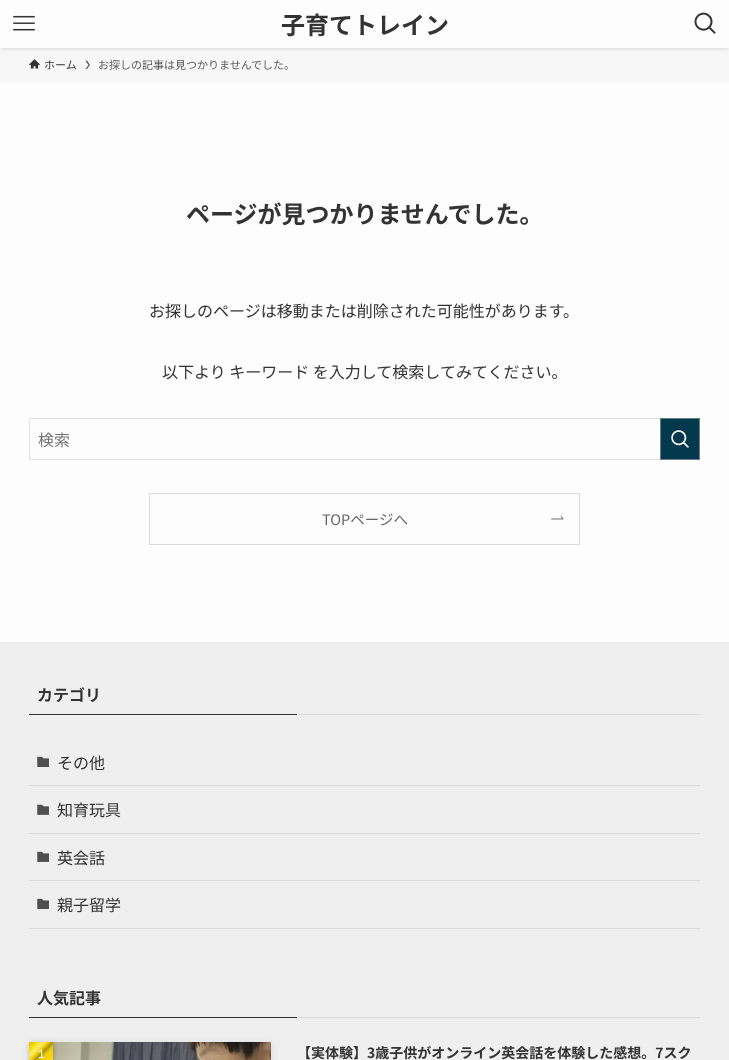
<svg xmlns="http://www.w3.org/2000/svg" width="729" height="1060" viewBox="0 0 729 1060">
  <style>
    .t1 { font: bold 24px Noto Sans JP; fill: #333; }
    .t2 { font: 11px Noto Sans JP; fill: #333; }
    .t3 { font: 11px Noto Sans JP; fill: #5a5a5a; }
    .t4 { font: 16px Noto Sans JP; fill: #333; }
    .t5 { font: 16px Noto Sans JP; fill: #757575; }
    .t6 { font: 14.5px Noto Sans JP; fill: #666; }
    .t7 { font: bold 16px Noto Sans JP; fill: #333; }
    .t8 { font: 12px Liberation Sans; fill: #fff; }
    .t9 { font: bold 14px Noto Sans JP; fill: #333; }
  </style>
  <defs>
    <clipPath id="clip1"><rect x="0" y="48" width="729" height="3"/></clipPath>
    <linearGradient id="g1" gradientUnits="userSpaceOnUse" x1="53" y1="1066" x2="29" y2="1042"><stop offset="0" stop-color="#f7bf05"/><stop offset="0.1" stop-color="#fcea7f"/><stop offset="0.2" stop-color="#fcd700"/><stop offset="0.3" stop-color="#f7d305"/><stop offset="0.4" stop-color="#eaca12"/><stop offset="0.5" stop-color="#ac9303"/><stop offset="0.6" stop-color="#f7d305"/><stop offset="0.7" stop-color="#fcea7f"/><stop offset="0.8" stop-color="#f7e705"/><stop offset="0.9" stop-color="#eaca12"/><stop offset="1" stop-color="#f7bf05"/></linearGradient>
  </defs>
  <rect width="100%" height="100%" fill="#fdfdfd"/>
  <rect x="0" y="48" width="729" height="34" fill="#f7f7f7"/>
  <g clip-path="url(#clip1)">
    <rect x="0" y="1" width="729" height="48" fill="#0000001f" filter="blur(2px)"/>
  </g>
  <image x="13" y="15" width="22" height="16" href="images/1.png"/>
  <text x="281" y="34" class="t1">子育てトレイン</text>
  <image x="694" y="12" width="22" height="22" href="images/2.png"/>
  <image x="29" y="59" width="11" height="10" href="images/3.png"/>
  <text x="44" y="69" class="t2">ホーム</text>
  <path d="M87 60.5L85.5 61L88.5 65L85.5 69H87L90 65Z" fill="#5a5a5a"/>
  <text x="98" y="69" class="t3">お探しの記事は見つかりませんでした。</text>
  <text x="186" y="223" class="t1">ページが見つかりませんでした。</text>
  <text x="149" y="317" class="t4">お探しのページは移動または削除された可能性があります。</text>
  <text x="162" y="378" class="t4">以下より キーワード を入力して検索してみてください。</text>
  <rect x="29.5" y="418.5" width="670" height="41" fill="none" stroke="#e3e3e3"/>
  <text x="38" y="446" class="t5">検索</text>
  <rect x="660.5" y="418.5" width="39" height="41" fill="#04384c" stroke="#66808a"/>
  <image x="671" y="430" width="18" height="18" href="images/4.png"/>
  <rect x="149.5" y="493.5" width="430" height="51" fill="none" stroke="#dcdcdc"/>
  <text x="322" y="525" class="t6">TOPページへ</text>
  <image x="551" y="516" width="13" height="4" href="images/5.png"/>
  <rect x="0" y="642" width="729" height="418" fill="#efefef"/>
  <text x="37" y="701" class="t7">カテゴリ</text>
  <rect x="29" y="714" width="268" height="1" fill="#333"/>
  <rect x="297" y="714" width="403" height="1" fill="#dbdbdb"/>
  <rect x="29" y="785" width="671" height="1" fill="#dbdbdb"/>
  <image x="37" y="756" width="12" height="11" href="images/6.png"/>
  <text x="57" y="769" class="t4">その他</text>
  <rect x="29" y="833" width="671" height="1" fill="#dbdbdb"/>
  <image x="37" y="804" width="12" height="11" href="images/7.png"/>
  <text x="57" y="816" class="t4">知育玩具</text>
  <rect x="29" y="880" width="671" height="1" fill="#dbdbdb"/>
  <image x="37" y="851" width="12" height="11" href="images/8.png"/>
  <text x="57" y="864" class="t4">英会話</text>
  <rect x="29" y="928" width="671" height="1" fill="#dbdbdb"/>
  <image x="37" y="898" width="12" height="11" href="images/9.png"/>
  <text x="57" y="911" class="t4">親子留学</text>
  <text x="37" y="1004" class="t7">人気記事</text>
  <rect x="29" y="1017" width="268" height="1" fill="#333"/>
  <rect x="297" y="1017" width="403" height="1" fill="#dbdbdb"/>
  <rect x="29" y="1044" width="242" height="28" fill="#0000001a" filter="blur(4px)"/>
  <image x="53" y="1042" width="218" height="18" href="images/10.png"/>
  <rect x="30" y="1043" width="24" height="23" fill="#00000033" filter="blur(2px)"/>
  <rect x="29" y="1042" width="24" height="18" fill="url(#g1)"/>
  <text x="38" y="1058" class="t8">1</text>
  <text x="297" y="1058" class="t9">【実体験】3歳子供がオンライン英会話を体験した感想。7スク</text>
</svg>
